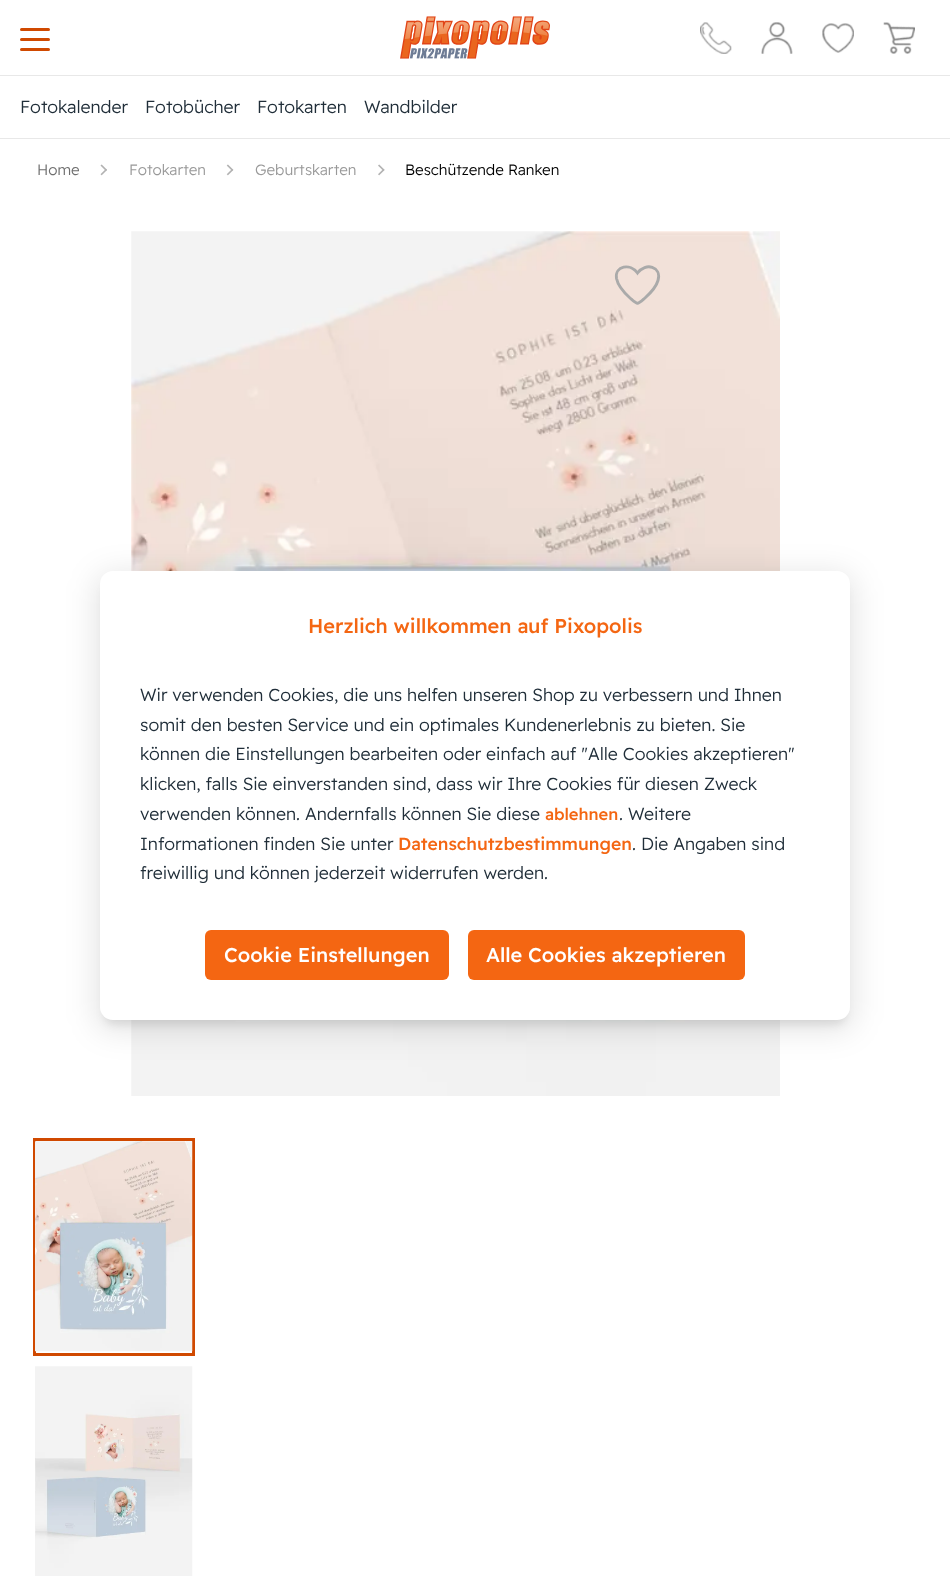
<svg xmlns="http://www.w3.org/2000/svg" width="950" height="1589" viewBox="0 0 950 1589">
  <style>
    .t1 { font: 300 17.5px Readex Pro; fill: #202e39; }
    .t2 { font: 300 15px Readex Pro; fill: #6e6e6e; }
    .t3 { font: 300 15px Readex Pro; fill: #999; }
    .t4 { font: 300 15px Readex Pro; fill: #000; }
    .t5 { font: 500 20px Readex Pro; fill: #f46612; }
    .t6 { font: 500 16.5px Readex Pro; fill: #f46612; }
    .t7 { font: 500 17.5px Readex Pro; fill: #f46612; }
    .t8 { font: 500 20px Readex Pro; fill: #fff; }
  </style>
  <rect width="100%" height="100%" fill="#fff"/>
  <rect x="0" y="75" width="950" height="1" fill="#e8e8e8"/>
  <rect x="20" y="28" width="30" height="3" rx="1.5" fill="#d04900"/>
  <rect x="20" y="38" width="30" height="3" rx="1.5" fill="#d04900"/>
  <rect x="20" y="48" width="30" height="3" rx="1.5" fill="#d04900"/>
  <image x="400" y="16" width="150" height="43" href="images/1.png"/>
  <image x="700" y="22" width="32" height="32" href="images/2.png"/>
  <image x="761" y="22" width="32" height="32" href="images/3.png"/>
  <image x="822" y="23" width="32" height="30" href="images/4.png"/>
  <image x="883" y="22" width="32" height="32" href="images/5.png"/>
  <rect x="0" y="138" width="950" height="1" fill="#e8e8e8"/>
  <text x="20" y="113" class="t1">Fotokalender</text>
  <text x="145" y="113" class="t1">Fotobücher</text>
  <text x="257" y="113" class="t1">Fotokarten</text>
  <text x="364" y="113" class="t1">Wandbilder</text>
  <text x="37" y="175" class="t2">Home</text>
  <image x="100" y="164" width="7" height="12" href="images/6.png"/>
  <text x="129" y="175" class="t3">Fotokarten</text>
  <image x="226" y="164" width="8" height="12" href="images/7.png"/>
  <text x="255" y="175" class="t3">Geburtskarten</text>
  <image x="378" y="164" width="7" height="12" href="images/8.png"/>
  <text x="405" y="175" class="t4">Beschützende Ranken</text>
  <image x="131" y="231" width="649" height="865" href="images/9.png"/>
  <path d="M658 280.5C656 287.5 650 293.5 645 298C637 305 638 305 630 298C624.5 293 618 286 616.5 278.5C614.5 265.5 630.5 263 637.5 273C645.5 262 662 266.5 658 280.5Z" fill="none" stroke="#aaa" stroke-width="2.9"/>
  <rect x="34.5" y="1139.5" width="159" height="215" fill="none" stroke="#d04900" stroke-width="3"/>
  <image x="35" y="1141" width="158" height="211" href="images/10.png"/>
  <image x="35" y="1366" width="158" height="210" href="images/11.png"/>
  <rect x="95" y="573" width="760" height="458" rx="18" fill="#0000001a" filter="blur(15.5px)"/>
  <rect x="105" y="585" width="740" height="439" rx="8" fill="#0000001a" filter="blur(5px)"/>
  <rect x="100" y="571" width="750" height="449" rx="13" fill="#fff"/>
  <text x="308" y="633" class="t5">Herzlich willkommen auf Pixopolis</text>
  <text x="140" y="701" class="t1">Wir verwenden Cookies, die uns helfen unseren Shop zu verbessern und Ihnen</text>
  <text x="140" y="731" class="t1">somit den besten Service und ein optimales Kundenerlebnis zu bieten. Sie</text>
  <text x="140" y="760" class="t1">können die Einstellungen bearbeiten oder einfach auf "Alle Cookies akzeptieren"</text>
  <text x="140" y="790" class="t1">klicken, falls Sie einverstanden sind, dass wir Ihre Cookies für diesen Zweck</text>
  <text x="140" y="820" class="t1">verwenden können. Andernfalls können Sie diese</text>
  <text x="545" y="820" class="t6">ablehnen</text>
  <text x="619" y="820" class="t1">. Weitere</text>
  <text x="140" y="850" class="t1">Informationen finden Sie unter</text>
  <text x="398" y="850" class="t7">Datenschutzbestimmungen</text>
  <text x="632" y="850" class="t1">. Die Angaben sind</text>
  <text x="140" y="879" class="t1">freiwillig und können jederzeit widerrufen werden.</text>
  <rect x="205" y="930" width="244" height="50" rx="6" fill="#f46612"/>
  <text x="224" y="962" class="t8">Cookie Einstellungen</text>
  <rect x="468" y="930" width="277" height="50" rx="6" fill="#f46612"/>
  <text x="486" y="962" class="t8">Alle Cookies akzeptieren</text>
</svg>
